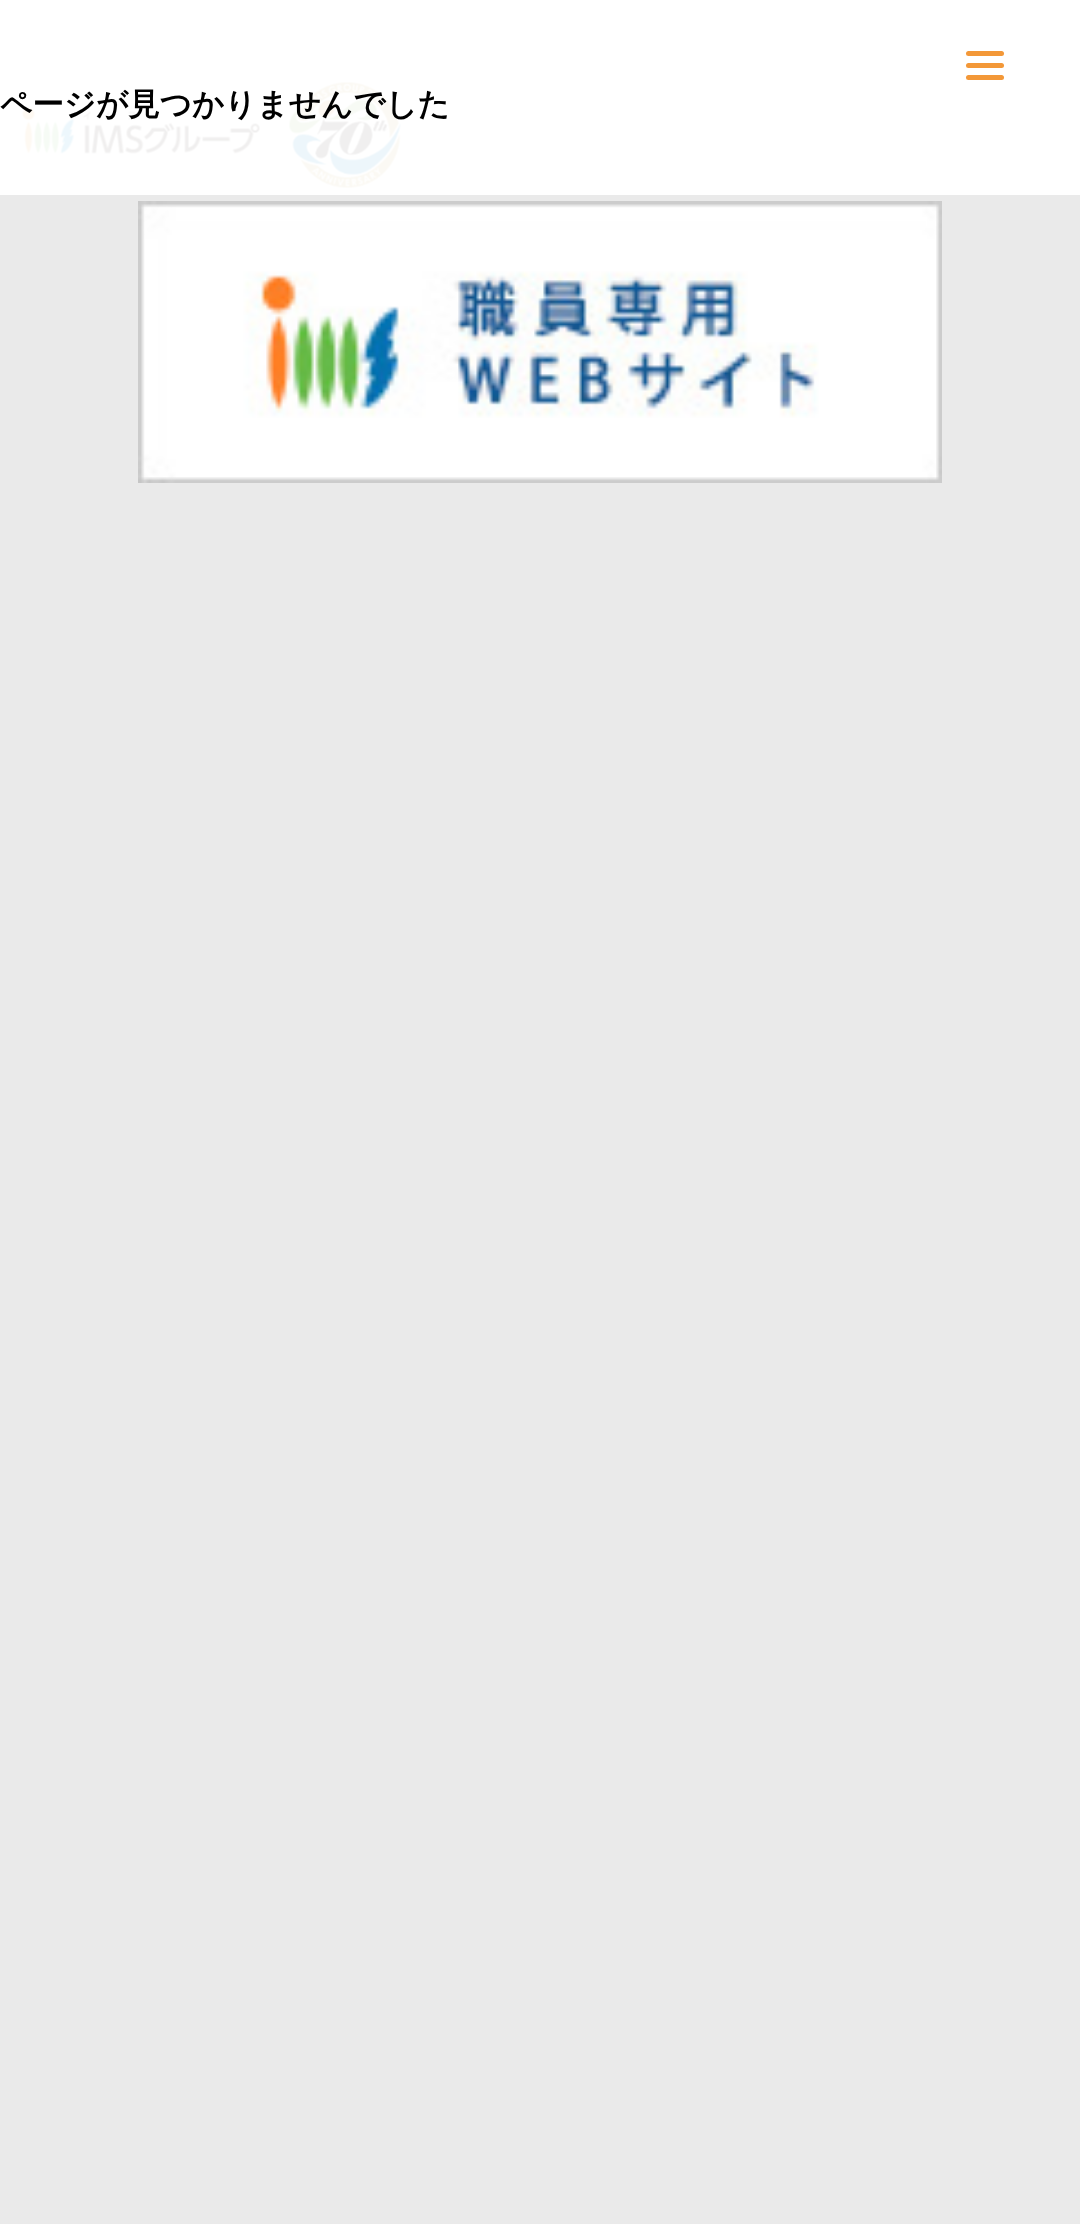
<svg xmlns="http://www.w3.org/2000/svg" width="1080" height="2224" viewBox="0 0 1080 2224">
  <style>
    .t1 { font: bold 31.5px WenQuanYi Zen Hei; fill: #000; }
  </style>
  <rect width="100%" height="100%" fill="#fff"/>
  <rect x="966" y="63" width="38" height="5" rx="2.5" fill="#f39838"/>
  <rect x="966" y="51" width="38" height="5" rx="2.5" fill="#f39838"/>
  <rect x="966" y="75" width="38" height="5" rx="2.5" fill="#f39838"/>
  <image x="22" y="107" width="238" height="47" href="images/1.png"/>
  <image x="289" y="82" width="112" height="106" href="images/2.png"/>
  <text x="0" y="115" class="t1">ページが見つかりませんでした</text>
  <rect x="0" y="195" width="1080" height="2029" fill="#eaeaea"/>
  <image x="138" y="201" width="804" height="282" href="images/3.png"/>
</svg>
